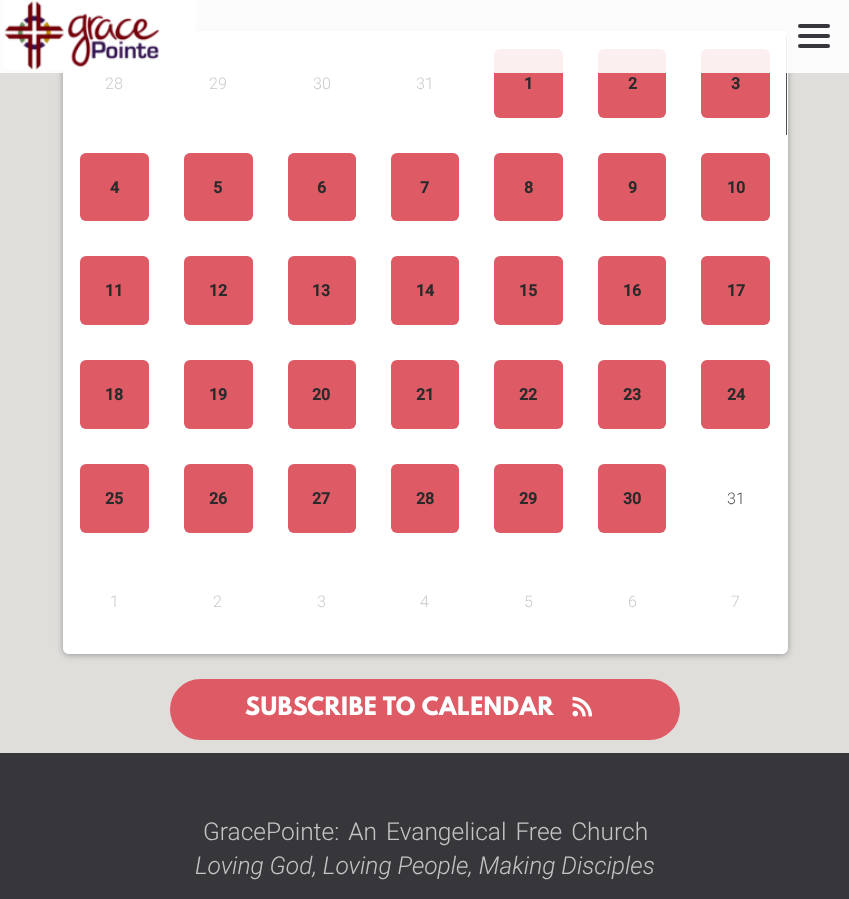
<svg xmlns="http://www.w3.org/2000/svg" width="849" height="899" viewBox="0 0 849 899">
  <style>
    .t1 { font: 300 16px Roboto; fill: #cacacb; }
    .t2 { font: bold 16px Roboto; fill: #2a2a2a; }
    .t3 { font: 300 16px Roboto; fill: #4f4f53; }
    .t4 { font: bold 22.4px League Spartan; letter-spacing: 0.45px; fill: #fff; }
    .t5 { font: 300 24.5px Roboto; fill: #c5c4c3; }
    .t6 { font: italic 300 24.5px Roboto; fill: #c5c4c3; }
  </style>
  <rect width="100%" height="100%" fill="#36363b"/>
  <rect x="0" y="0" width="849" height="753" fill="#e0deda"/>
  <rect x="63" y="33" width="725" height="622" rx="6" fill="#4f4f5380" filter="blur(3px)"/>
  <rect x="63" y="69" width="103" height="481" fill="#fff"/>
  <rect x="166" y="31" width="518" height="104" fill="#fff"/>
  <path d="M684 31H782C785.5 31 788 33.5 788 37V135H684Z" fill="#fff"/>
  <rect x="786" y="35" width="1" height="100" fill="#4f4f53"/>
  <rect x="494" y="49" width="69" height="69" rx="6" fill="#de5b66"/>
  <rect x="598" y="49" width="68" height="69" rx="6" fill="#de5b66"/>
  <rect x="701" y="49" width="69" height="69" rx="6" fill="#de5b66"/>
  <rect x="0" y="0" width="849" height="73" fill="#ffffffe6"/>
  <image x="4" y="0" width="192" height="70" href="images/1.png"/>
  <rect x="798" y="24" width="32" height="4" rx="2" fill="#36363b"/>
  <rect x="798" y="34" width="32" height="4" rx="2" fill="#36363b"/>
  <rect x="798" y="44" width="32" height="4" rx="2" fill="#36363b"/>
  <text x="105" y="89" class="t1">28</text>
  <text x="209" y="89" class="t1">29</text>
  <text x="313" y="89" class="t1">30</text>
  <text x="416" y="89" class="t1">31</text>
  <text x="524" y="89" class="t2">1</text>
  <text x="628" y="89" class="t2">2</text>
  <text x="731" y="89" class="t2">3</text>
  <rect x="166" y="135" width="622" height="104" fill="#fff"/>
  <rect x="80" y="153" width="69" height="68" rx="6" fill="#de5b66"/>
  <text x="110" y="193" class="t2">4</text>
  <rect x="184" y="153" width="69" height="68" rx="6" fill="#de5b66"/>
  <text x="213" y="193" class="t2">5</text>
  <rect x="288" y="153" width="68" height="68" rx="6" fill="#de5b66"/>
  <text x="317" y="193" class="t2">6</text>
  <rect x="391" y="153" width="68" height="68" rx="6" fill="#de5b66"/>
  <text x="420" y="193" class="t2">7</text>
  <rect x="494" y="153" width="69" height="68" rx="6" fill="#de5b66"/>
  <text x="524" y="193" class="t2">8</text>
  <rect x="598" y="153" width="68" height="68" rx="6" fill="#de5b66"/>
  <text x="628" y="193" class="t2">9</text>
  <rect x="701" y="153" width="69" height="68" rx="6" fill="#de5b66"/>
  <text x="727" y="193" class="t2">10</text>
  <rect x="166" y="239" width="622" height="104" fill="#fff"/>
  <rect x="80" y="256" width="69" height="69" rx="6" fill="#de5b66"/>
  <text x="105" y="296" class="t2">11</text>
  <rect x="184" y="256" width="69" height="69" rx="6" fill="#de5b66"/>
  <text x="209" y="296" class="t2">12</text>
  <rect x="288" y="256" width="68" height="69" rx="6" fill="#de5b66"/>
  <text x="312" y="296" class="t2">13</text>
  <rect x="391" y="256" width="68" height="69" rx="6" fill="#de5b66"/>
  <text x="416" y="296" class="t2">14</text>
  <rect x="494" y="256" width="69" height="69" rx="6" fill="#de5b66"/>
  <text x="519" y="296" class="t2">15</text>
  <rect x="598" y="256" width="68" height="69" rx="6" fill="#de5b66"/>
  <text x="623" y="296" class="t2">16</text>
  <rect x="701" y="256" width="69" height="69" rx="6" fill="#de5b66"/>
  <text x="727" y="296" class="t2">17</text>
  <rect x="166" y="343" width="622" height="103" fill="#fff"/>
  <rect x="80" y="360" width="69" height="69" rx="6" fill="#de5b66"/>
  <text x="105" y="400" class="t2">18</text>
  <rect x="184" y="360" width="69" height="69" rx="6" fill="#de5b66"/>
  <text x="209" y="400" class="t2">19</text>
  <rect x="288" y="360" width="68" height="69" rx="6" fill="#de5b66"/>
  <text x="312" y="400" class="t2">20</text>
  <rect x="391" y="360" width="68" height="69" rx="6" fill="#de5b66"/>
  <text x="416" y="400" class="t2">21</text>
  <rect x="494" y="360" width="69" height="69" rx="6" fill="#de5b66"/>
  <text x="519" y="400" class="t2">22</text>
  <rect x="598" y="360" width="68" height="69" rx="6" fill="#de5b66"/>
  <text x="623" y="400" class="t2">23</text>
  <rect x="701" y="360" width="69" height="69" rx="6" fill="#de5b66"/>
  <text x="727" y="400" class="t2">24</text>
  <rect x="166" y="446" width="622" height="104" fill="#fff"/>
  <rect x="80" y="464" width="69" height="69" rx="6" fill="#de5b66"/>
  <text x="105" y="504" class="t2">25</text>
  <rect x="184" y="464" width="69" height="69" rx="6" fill="#de5b66"/>
  <text x="209" y="504" class="t2">26</text>
  <rect x="288" y="464" width="68" height="69" rx="6" fill="#de5b66"/>
  <text x="312" y="504" class="t2">27</text>
  <rect x="391" y="464" width="68" height="69" rx="6" fill="#de5b66"/>
  <text x="416" y="504" class="t2">28</text>
  <rect x="494" y="464" width="69" height="69" rx="6" fill="#de5b66"/>
  <text x="519" y="504" class="t2">29</text>
  <rect x="598" y="464" width="68" height="69" rx="6" fill="#de5b66"/>
  <text x="623" y="504" class="t2">30</text>
  <text x="727" y="504" class="t3">31</text>
  <path d="M63 550H166V654H69C65.5 654 63 651.5 63 648Z" fill="#fff"/>
  <rect x="166" y="550" width="518" height="104" fill="#fff"/>
  <path d="M684 550H788V648C788 651.5 785.5 654 782 654H684Z" fill="#fff"/>
  <text x="110" y="607" class="t1">1</text>
  <text x="213" y="607" class="t1">2</text>
  <text x="317" y="607" class="t1">3</text>
  <text x="420" y="607" class="t1">4</text>
  <text x="524" y="607" class="t1">5</text>
  <text x="628" y="607" class="t1">6</text>
  <text x="731" y="607" class="t1">7</text>
  <rect x="170" y="679" width="510" height="61" rx="30.5" fill="#de5b66"/>
  <text x="245" y="715" class="t4">SUBSCRIBE TO CALENDAR</text>
  <image x="572" y="696" width="21" height="21" href="images/2.png"/>
  <text x="203" y="840" word-spacing="3" class="t5">GracePointe: An Evangelical Free Church</text>
  <text x="195" y="874" class="t6">Loving God, Loving People, Making Disciples</text>
</svg>
